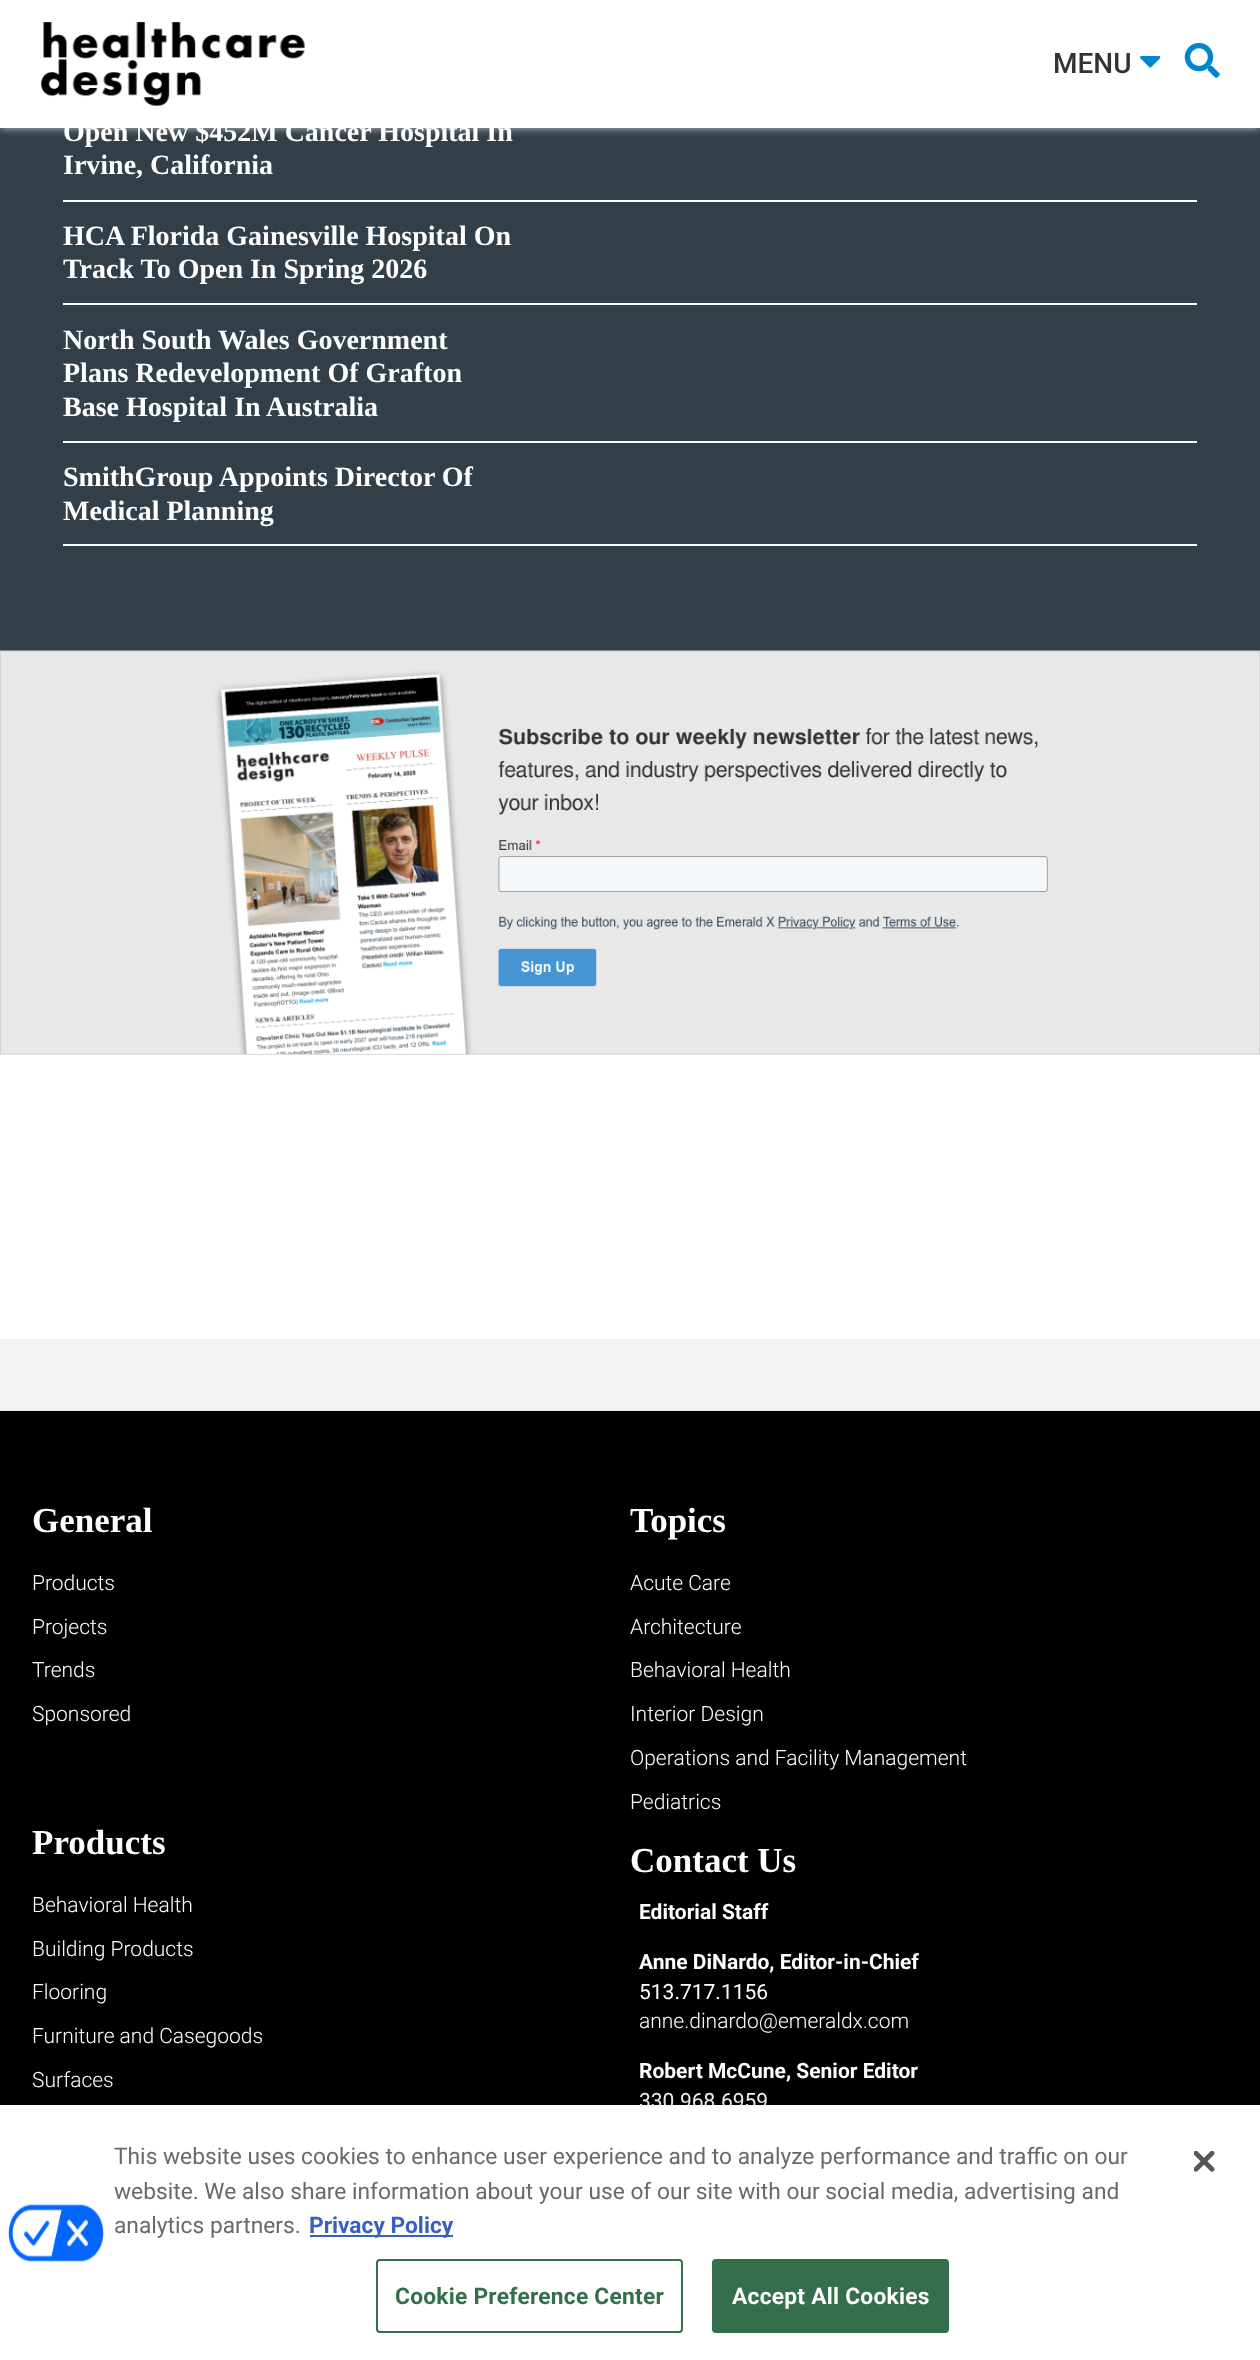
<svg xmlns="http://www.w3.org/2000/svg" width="1260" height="2360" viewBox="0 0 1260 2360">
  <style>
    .t1 { font: 500 28px Roboto; fill: #333; }
    .t2 { font: bold 28px Liberation Serif; fill: #fff; }
    .t3 { font: bold 35px Liberation Serif; fill: #fff; }
    .t4 { font: 300 21px Roboto; fill: #fff; }
    .t5 { font: bold 21px Roboto; fill: #fff; }
    .t6 { font: 21px Roboto; fill: #fff; }
    .t7 { font: 22.75px Roboto; fill: #696969; }
    .t8 { font: bold 22.75px Roboto; fill: #3860be; }
    .t9 { font: bold 22.75px Roboto; letter-spacing: 0.25px; fill: #346e4a; }
    .t10 { font: bold 22.75px Roboto; letter-spacing: 0.25px; fill: #fff; }
  </style>
  <rect width="100%" height="100%" fill="#fff"/>
  <rect x="0" y="128" width="1260" height="523" fill="#323e48"/>
  <rect x="0" y="0" width="1260" height="128" fill="#ccc" filter="blur(4.5px)"/>
  <rect x="0" y="0" width="1260" height="128" fill="#fff"/>
  <image x="41" y="22" width="264" height="84" href="images/1.png"/>
  <text x="1053" y="73" class="t1">MENU</text>
  <image x="1140" y="56" width="21" height="12" href="images/2.png"/>
  <image x="1184" y="42" width="36" height="36" href="images/3.png"/>
  <rect x="63" y="200" width="1134" height="2" fill="#fff"/>
  <text x="63" y="141" class="t2">Open New $452M Cancer Hospital In</text>
  <text x="63" y="174" class="t2">Irvine, California</text>
  <rect x="63" y="303" width="1134" height="2" fill="#fff"/>
  <text x="63" y="245" class="t2">HCA Florida Gainesville Hospital On</text>
  <text x="63" y="278" class="t2">Track To Open In Spring 2026</text>
  <rect x="63" y="441" width="1134" height="2" fill="#fff"/>
  <text x="63" y="349" class="t2">North South Wales Government</text>
  <text x="63" y="382" class="t2">Plans Redevelopment Of Grafton</text>
  <text x="63" y="416" class="t2">Base Hospital In Australia</text>
  <rect x="63" y="544" width="1134" height="2" fill="#fff"/>
  <text x="63" y="486" class="t2">SmithGroup Appoints Director Of</text>
  <text x="63" y="520" class="t2">Medical Planning</text>
  <image x="0" y="650" width="1260" height="405" href="images/4.png"/>
  <rect x="0" y="1339" width="1260" height="72" fill="#f2f2f2"/>
  <rect x="0" y="1411" width="1260" height="694" fill="#000"/>
  <text x="32" y="1532" class="t3">General</text>
  <text x="32" y="1590" class="t4">Products</text>
  <text x="32" y="1634" class="t4">Projects</text>
  <text x="32" y="1677" class="t4">Trends</text>
  <text x="32" y="1721" class="t4">Sponsored</text>
  <text x="630" y="1532" class="t3">Topics</text>
  <text x="630" y="1590" class="t4">Acute Care</text>
  <text x="630" y="1634" class="t4">Architecture</text>
  <text x="630" y="1677" class="t4">Behavioral Health</text>
  <text x="630" y="1721" class="t4">Interior Design</text>
  <text x="630" y="1765" class="t4">Operations and Facility Management</text>
  <text x="630" y="1809" class="t4">Pediatrics</text>
  <text x="32" y="1854" class="t3">Products</text>
  <text x="32" y="1912" class="t4">Behavioral Health</text>
  <text x="32" y="1956" class="t4">Building Products</text>
  <text x="32" y="1999" class="t4">Flooring</text>
  <text x="32" y="2043" class="t4">Furniture and Casegoods</text>
  <text x="32" y="2087" class="t4">Surfaces</text>
  <text x="630" y="1872" class="t3">Contact Us</text>
  <text x="639" y="1919" class="t5">Editorial Staff</text>
  <text x="639" y="1969" class="t5">Anne DiNardo, Editor-in-Chief</text>
  <text x="639" y="1999" class="t6">513.717.1156</text>
  <text x="639" y="2028" class="t4">anne.dinardo@emeraldx.com</text>
  <text x="639" y="2078" class="t5">Robert McCune, Senior Editor</text>
  <text x="639" y="2108" class="t6">330.968.6959</text>
  <rect x="0" y="2105" width="1260" height="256" fill="#00000033" filter="blur(16px)"/>
  <rect x="0" y="2105" width="1260" height="255" fill="#fff"/>
  <image x="8" y="2204" width="96" height="58" href="images/5.png"/>
  <text x="114" y="2164" class="t7">This website uses cookies to enhance user experience and to analyze performance and traffic on our</text>
  <text x="114" y="2199" class="t7">website. We also share information about your use of our site with our social media, advertising and</text>
  <text x="114" y="2233" class="t7">analytics partners.</text>
  <rect x="310" y="2235" width="143" height="2" fill="#3860be"/>
  <text x="309" y="2233" class="t8">Privacy Policy</text>
  <rect x="377" y="2260" width="305" height="72" rx="3" fill="none" stroke="#346e4a" stroke-width="2"/>
  <text x="395" y="2304" class="t9">Cookie Preference Center</text>
  <rect x="713" y="2260" width="235" height="72" rx="3" fill="#346e4a" stroke="#346e4a" stroke-width="2"/>
  <text x="732" y="2304" class="t10">Accept All Cookies</text>
  <image x="1194" y="2151" width="21" height="21" href="images/6.png"/>
</svg>
